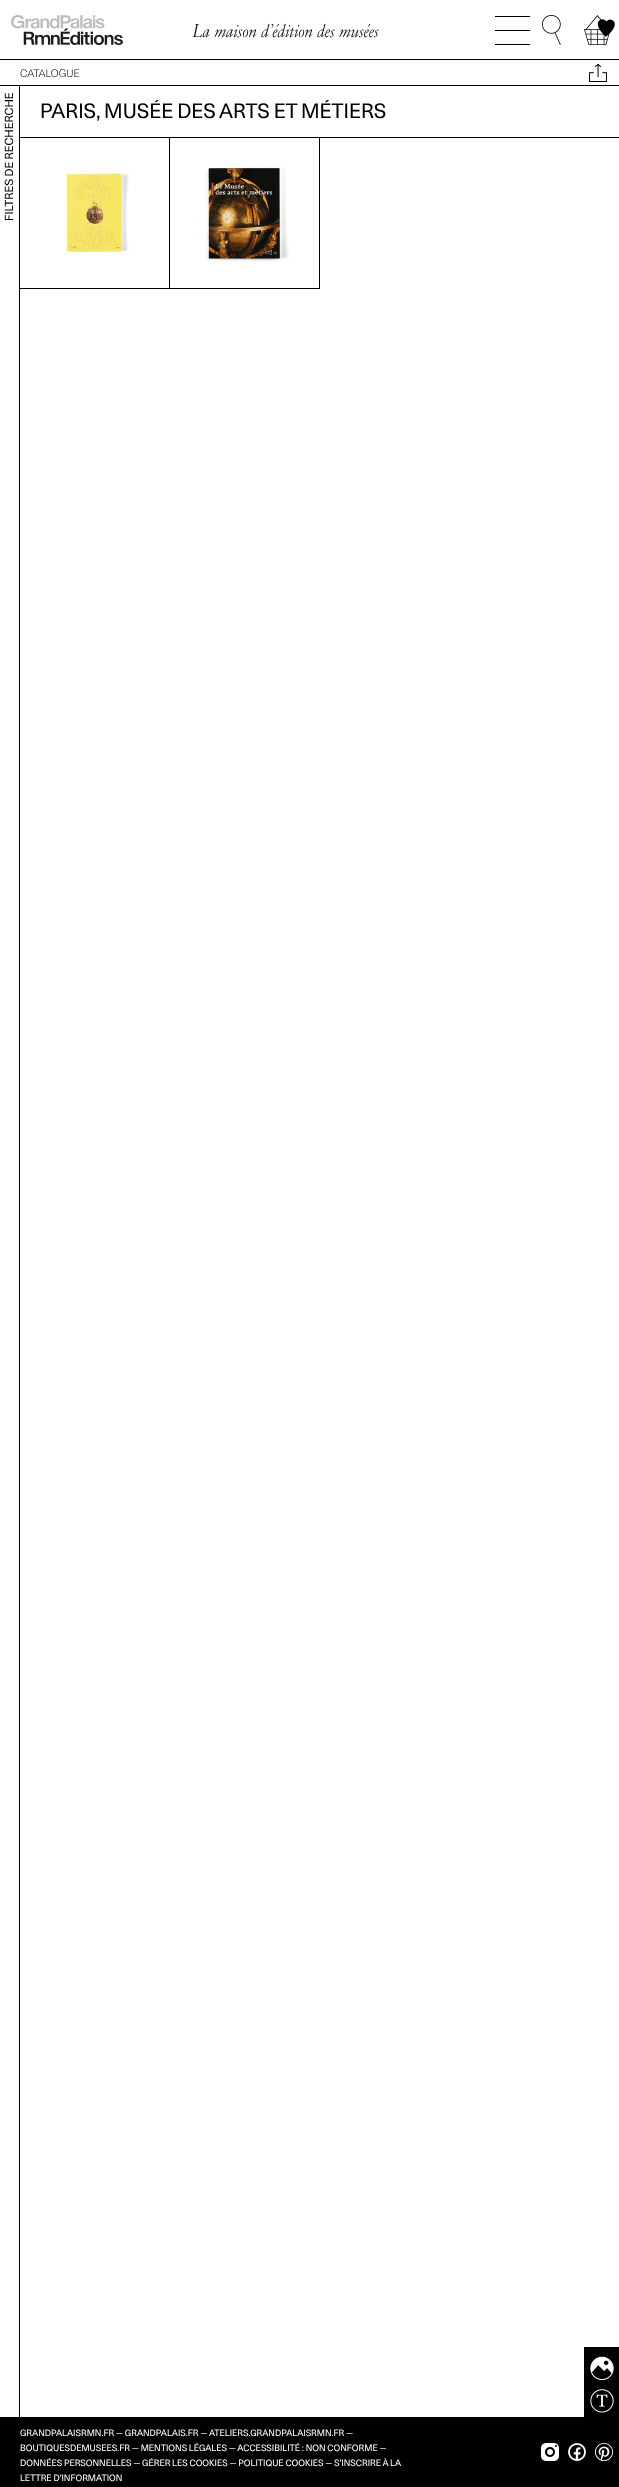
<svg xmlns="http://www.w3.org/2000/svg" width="619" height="2487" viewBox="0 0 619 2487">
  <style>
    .t1 { font: italic 18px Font; fill: #000; }
    .t2 { font: 300 10.5px Font; fill: #000; }
    .t3 { font: 11.25px Font; fill: #000; }
    .t4 { font: 20px Font; fill: #000; }
    .t5 { font: 8.8px Font; fill: #fff; }
  </style>
  <rect width="100%" height="100%" fill="#fff"/>
  <rect x="0" y="59" width="619" height="1" fill="#000"/>
  <image x="11" y="15" width="112" height="30" href="images/1.png"/>
  <text x="192" y="37" class="t1">La maison d’édition des musées</text>
  <rect x="495" y="16" width="35" height="1" fill="#000"/>
  <rect x="495" y="30" width="35" height="1" fill="#000"/>
  <rect x="495" y="44" width="35" height="1" fill="#000"/>
  <image x="542" y="15" width="19" height="30" href="images/2.png"/>
  <image x="584" y="15" width="31" height="30" href="images/3.png"/>
  <text x="20" y="77" class="t2">CATALOGUE</text>
  <image x="589" y="64" width="18" height="18" href="images/4.png"/>
  <rect x="0" y="85" width="619" height="1" fill="#000"/>
  <rect x="19" y="86" width="1" height="2331" fill="#000"/>
  <text x="13" y="221" transform="rotate(-90 13 221)" class="t3">FILTRES DE RECHERCHE</text>
  <text x="40" y="118" class="t4">PARIS, MUSÉE DES ARTS ET MÉTIERS</text>
  <rect x="20" y="137" width="599" height="1" fill="#000"/>
  <rect x="169" y="138" width="1" height="151" fill="#000"/>
  <rect x="20" y="288" width="150" height="1" fill="#000"/>
  <image x="64" y="171" width="66" height="82" href="images/5.png"/>
  <rect x="319" y="138" width="1" height="151" fill="#000"/>
  <rect x="170" y="288" width="150" height="1" fill="#000"/>
  <image x="205" y="165" width="84" height="97" href="images/6.png"/>
  <image x="584" y="2347" width="35" height="70" href="images/7.png"/>
  <rect x="0" y="2417" width="619" height="70" fill="#000"/>
  <text x="20" y="2436" class="t5">GRANDPALAISRMN.FR — GRANDPALAIS.FR — ATELIERS.GRANDPALAISRMN.FR —</text>
  <text x="20" y="2451" class="t5">BOUTIQUESDEMUSEES.FR — MENTIONS LÉGALES — ACCESSIBILITÉ : NON CONFORME —</text>
  <text x="20" y="2466" class="t5">DONNÉES PERSONNELLES — GÉRER LES COOKIES — POLITIQUE COOKIES —</text>
  <text x="334" y="2466" class="t5">S’INSCRIRE À LA</text>
  <text x="20" y="2481" class="t5">LETTRE D’INFORMATION</text>
  <image x="541" y="2443" width="18" height="18" href="images/8.png"/>
  <image x="568" y="2443" width="18" height="18" href="images/9.png"/>
  <image x="595" y="2443" width="18" height="18" href="images/10.png"/>
</svg>
